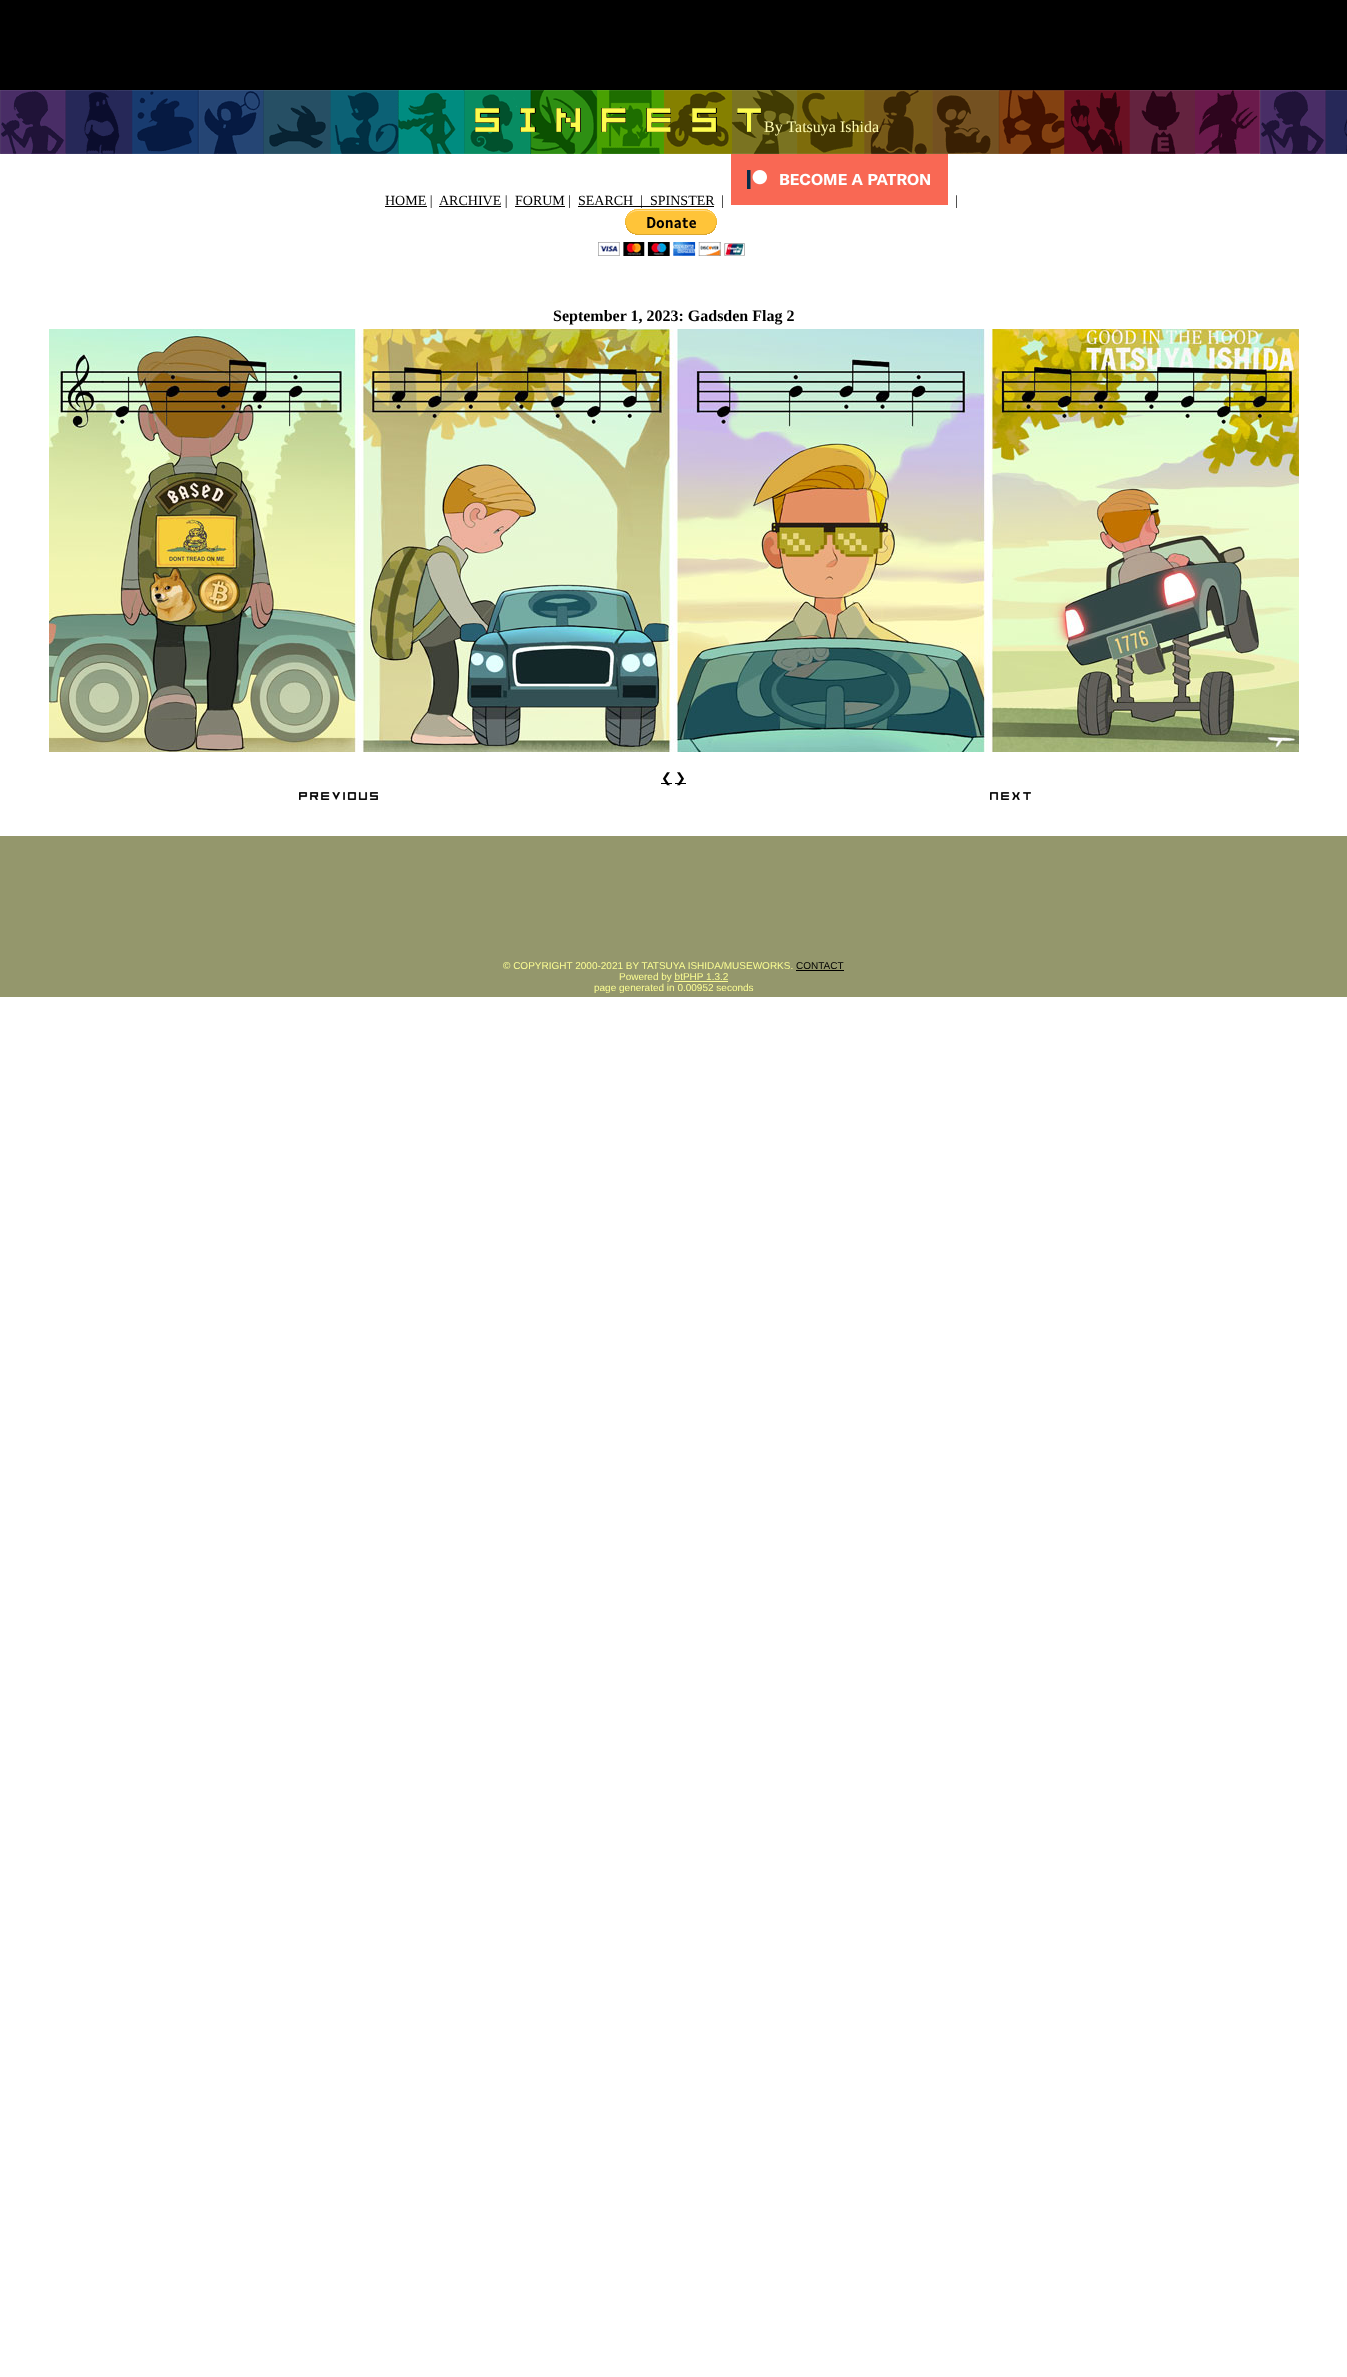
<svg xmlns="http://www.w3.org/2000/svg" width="1347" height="2377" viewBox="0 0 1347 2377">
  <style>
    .t1 { font: 16px Liberation Serif; fill: #fefbb0; }
    .t2 { font: 14px Liberation Serif; fill: #000; }
    .t3 { font: bold 16px Liberation Serif; fill: #000; }
    .t4 { font: 13px DejaVu Sans; fill: #000; }
    .t5 { font: 10px Liberation Sans; fill: #fbfd93; }
    .t6 { font: 10px Liberation Sans; fill: #000; }
  </style>
  <rect width="100%" height="100%" fill="#fff"/>
  <rect x="0" y="0" width="1347" height="90" fill="#000"/>
  <image x="0" y="90" width="1347" height="64" href="images/1.png"/>
  <image x="475" y="108" width="286" height="24" href="images/2.png"/>
  <text x="764" y="132" class="t1">By Tatsuya Ishida</text>
  <rect x="385" y="206" width="42" height="1" fill="#000"/>
  <text x="385" y="205" class="t2">HOME |</text>
  <rect x="439" y="206" width="62" height="1" fill="#000"/>
  <text x="439" y="205" class="t2">ARCHIVE |</text>
  <rect x="515" y="206" width="50" height="1" fill="#000"/>
  <text x="515" y="205" class="t2">FORUM |</text>
  <text x="578" y="205" class="t2">SEARCH</text>
  <rect x="578" y="206" width="136" height="1" fill="#000"/>
  <text x="640" y="205" class="t2">|</text>
  <text x="650" y="205" class="t2">SPINSTER</text>
  <text x="721" y="205" class="t2">|</text>
  <image x="731" y="154" width="217" height="51" href="images/3.png"/>
  <text x="955" y="205" class="t2">|</text>
  <image x="598" y="209" width="147" height="47" href="images/4.png"/>
  <text x="553" y="321" class="t3">September 1, 2023: Gadsden Flag 2</text>
  <image x="49" y="329" width="1250" height="423" href="images/5.png"/>
  <rect x="661" y="783" width="11" height="1" fill="#000"/>
  <text x="661" y="782" class="t4">❮</text>
  <rect x="675" y="783" width="11" height="1" fill="#000"/>
  <text x="675" y="782" class="t4">❯</text>
  <image x="299" y="792" width="79" height="8" href="images/6.png"/>
  <image x="990" y="792" width="41" height="8" href="images/7.png"/>
  <rect x="0" y="836" width="1347" height="161" fill="#94976c"/>
  <text x="503" y="969" class="t5">© COPYRIGHT 2000-2021 BY TATSUYA ISHIDA/MUSEWORKS.</text>
  <text x="796" y="969" class="t6">CONTACT</text>
  <rect x="796" y="970" width="48" height="1" fill="#000"/>
  <text x="619" y="980" class="t5">Powered by btPHP 1.3.2</text>
  <rect x="674" y="981" width="54" height="1" fill="#fbfd93"/>
  <text x="594" y="991" class="t5">page generated in 0.00952 seconds</text>
</svg>
